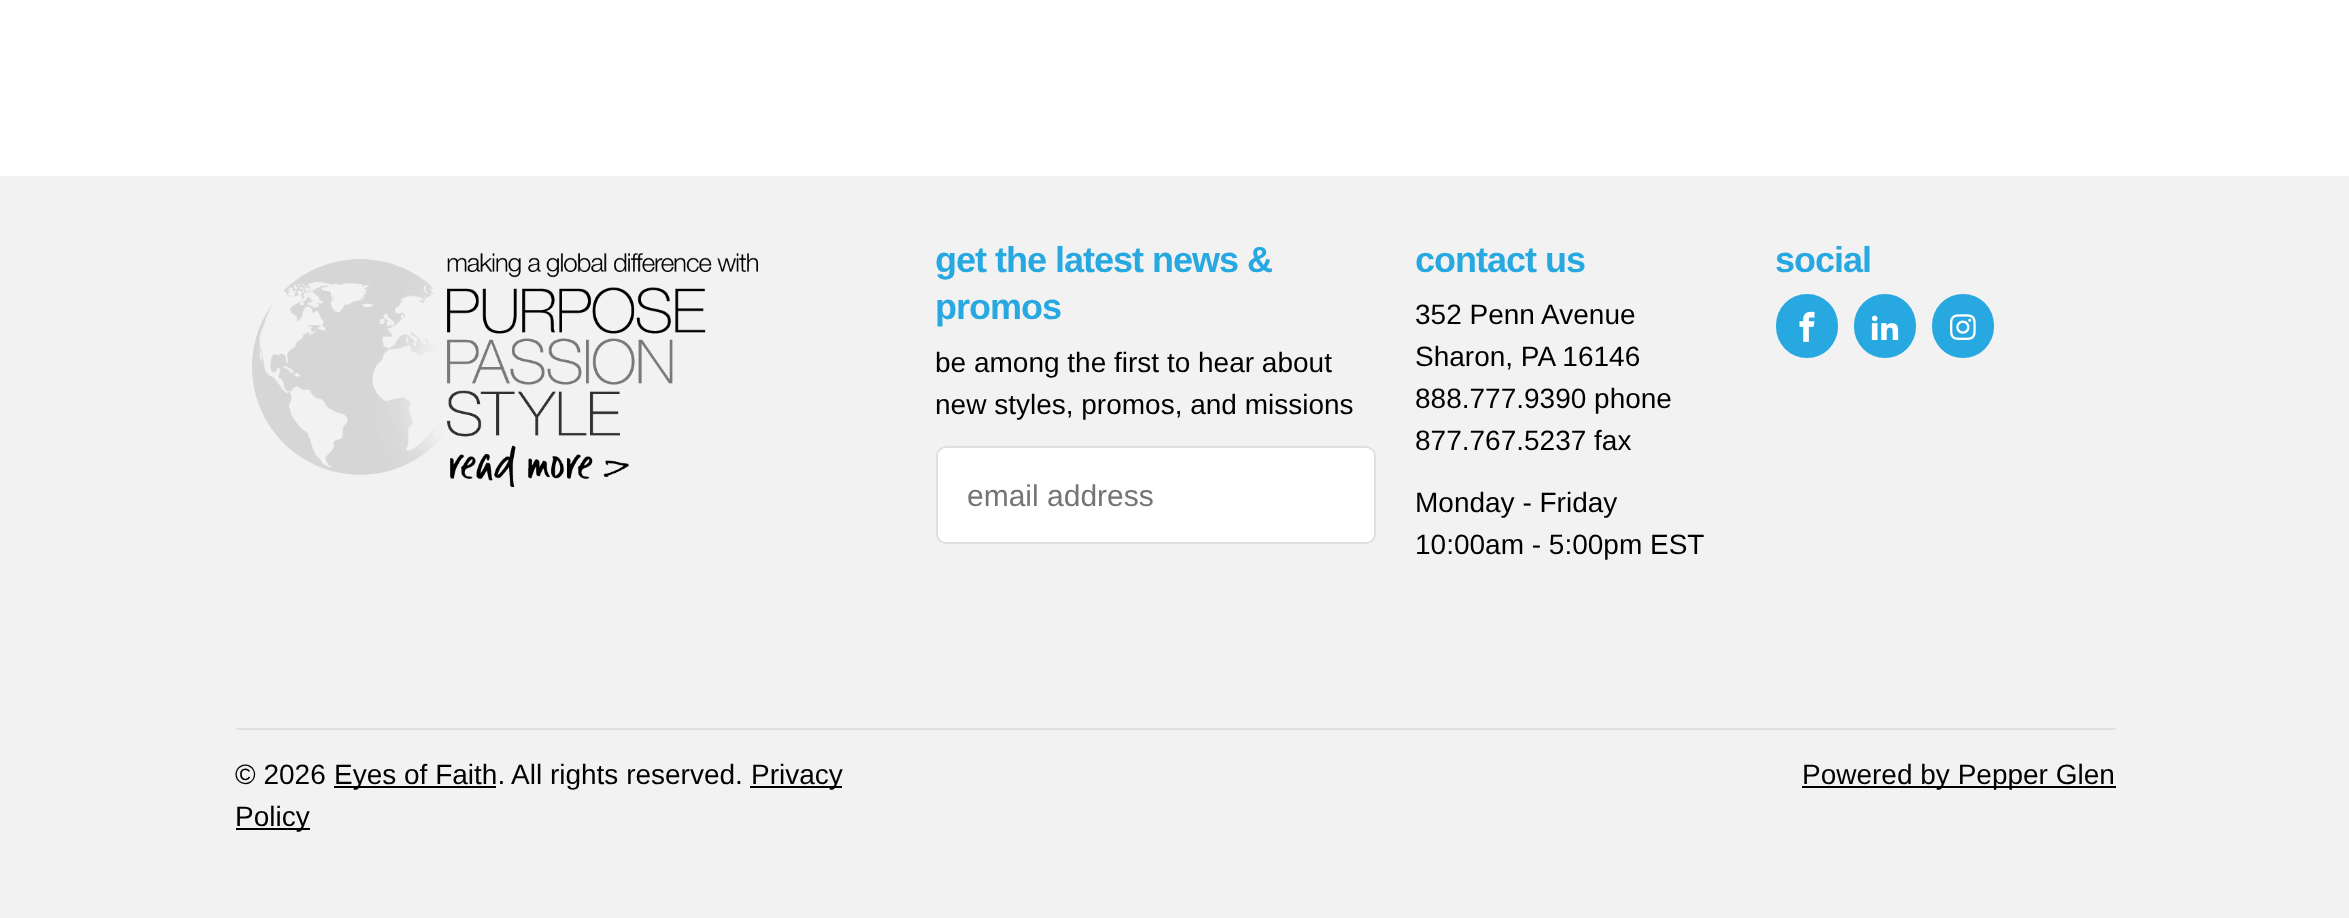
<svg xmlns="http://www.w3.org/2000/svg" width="2349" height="918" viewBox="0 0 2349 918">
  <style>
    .t1 { font: bold 36px Liberation Sans; letter-spacing: -1px; fill: #28a8e0; }
    .t2 { font: 28px Liberation Sans; fill: #000; }
    .t3 { font: 30px Liberation Sans; fill: #757575; }
  </style>
  <rect width="100%" height="100%" fill="#fff"/>
  <rect x="0" y="176" width="2349" height="742" fill="#f2f2f2"/>
  <image x="252" y="253" width="506" height="234" href="images/1.png"/>
  <text x="935" y="272" class="t1">get the latest news &amp;</text>
  <text x="935" y="319" class="t1">promos</text>
  <text x="935" y="372" class="t2">be among the first to hear about</text>
  <text x="935" y="414" class="t2">new styles, promos, and missions</text>
  <rect x="937" y="447" width="438" height="96" rx="9" fill="#fff" stroke="#e0e0e0" stroke-width="2"/>
  <text x="967" y="506" class="t3">email address</text>
  <text x="1415" y="272" class="t1">contact us</text>
  <text x="1415" y="324" class="t2">352 Penn Avenue</text>
  <text x="1415" y="366" class="t2">Sharon, PA 16146</text>
  <text x="1415" y="408" class="t2">888.777.9390 phone</text>
  <text x="1415" y="450" class="t2">877.767.5237 fax</text>
  <text x="1415" y="512" class="t2">Monday - Friday</text>
  <text x="1415" y="554" class="t2">10:00am - 5:00pm EST</text>
  <text x="1775" y="272" class="t1">social</text>
  <rect x="1776" y="294" width="62" height="64" rx="31" fill="#28a8e0"/>
  <image x="1799" y="311" width="16" height="31" href="images/2.png"/>
  <rect x="1854" y="294" width="62" height="64" rx="31" fill="#28a8e0"/>
  <image x="1871" y="315" width="28" height="25" href="images/3.png"/>
  <rect x="1932" y="294" width="62" height="64" rx="31" fill="#28a8e0"/>
  <image x="1950" y="314" width="26" height="26" href="images/4.png"/>
  <rect x="236" y="728" width="1880" height="2" fill="#e0e0e0"/>
  <text x="235" y="784" class="t2">© 2026</text>
  <rect x="334" y="786" width="162" height="2" fill="#000"/>
  <text x="334" y="784" class="t2">Eyes of Faith.</text>
  <text x="511" y="784" class="t2">All rights reserved.</text>
  <rect x="750" y="786" width="92" height="2" fill="#000"/>
  <text x="751" y="784" class="t2">Privacy</text>
  <rect x="236" y="828" width="74" height="2" fill="#000"/>
  <text x="235" y="826" class="t2">Policy</text>
  <rect x="1802" y="786" width="314" height="2" fill="#000"/>
  <text x="1802" y="784" class="t2">Powered by Pepper Glen</text>
</svg>
